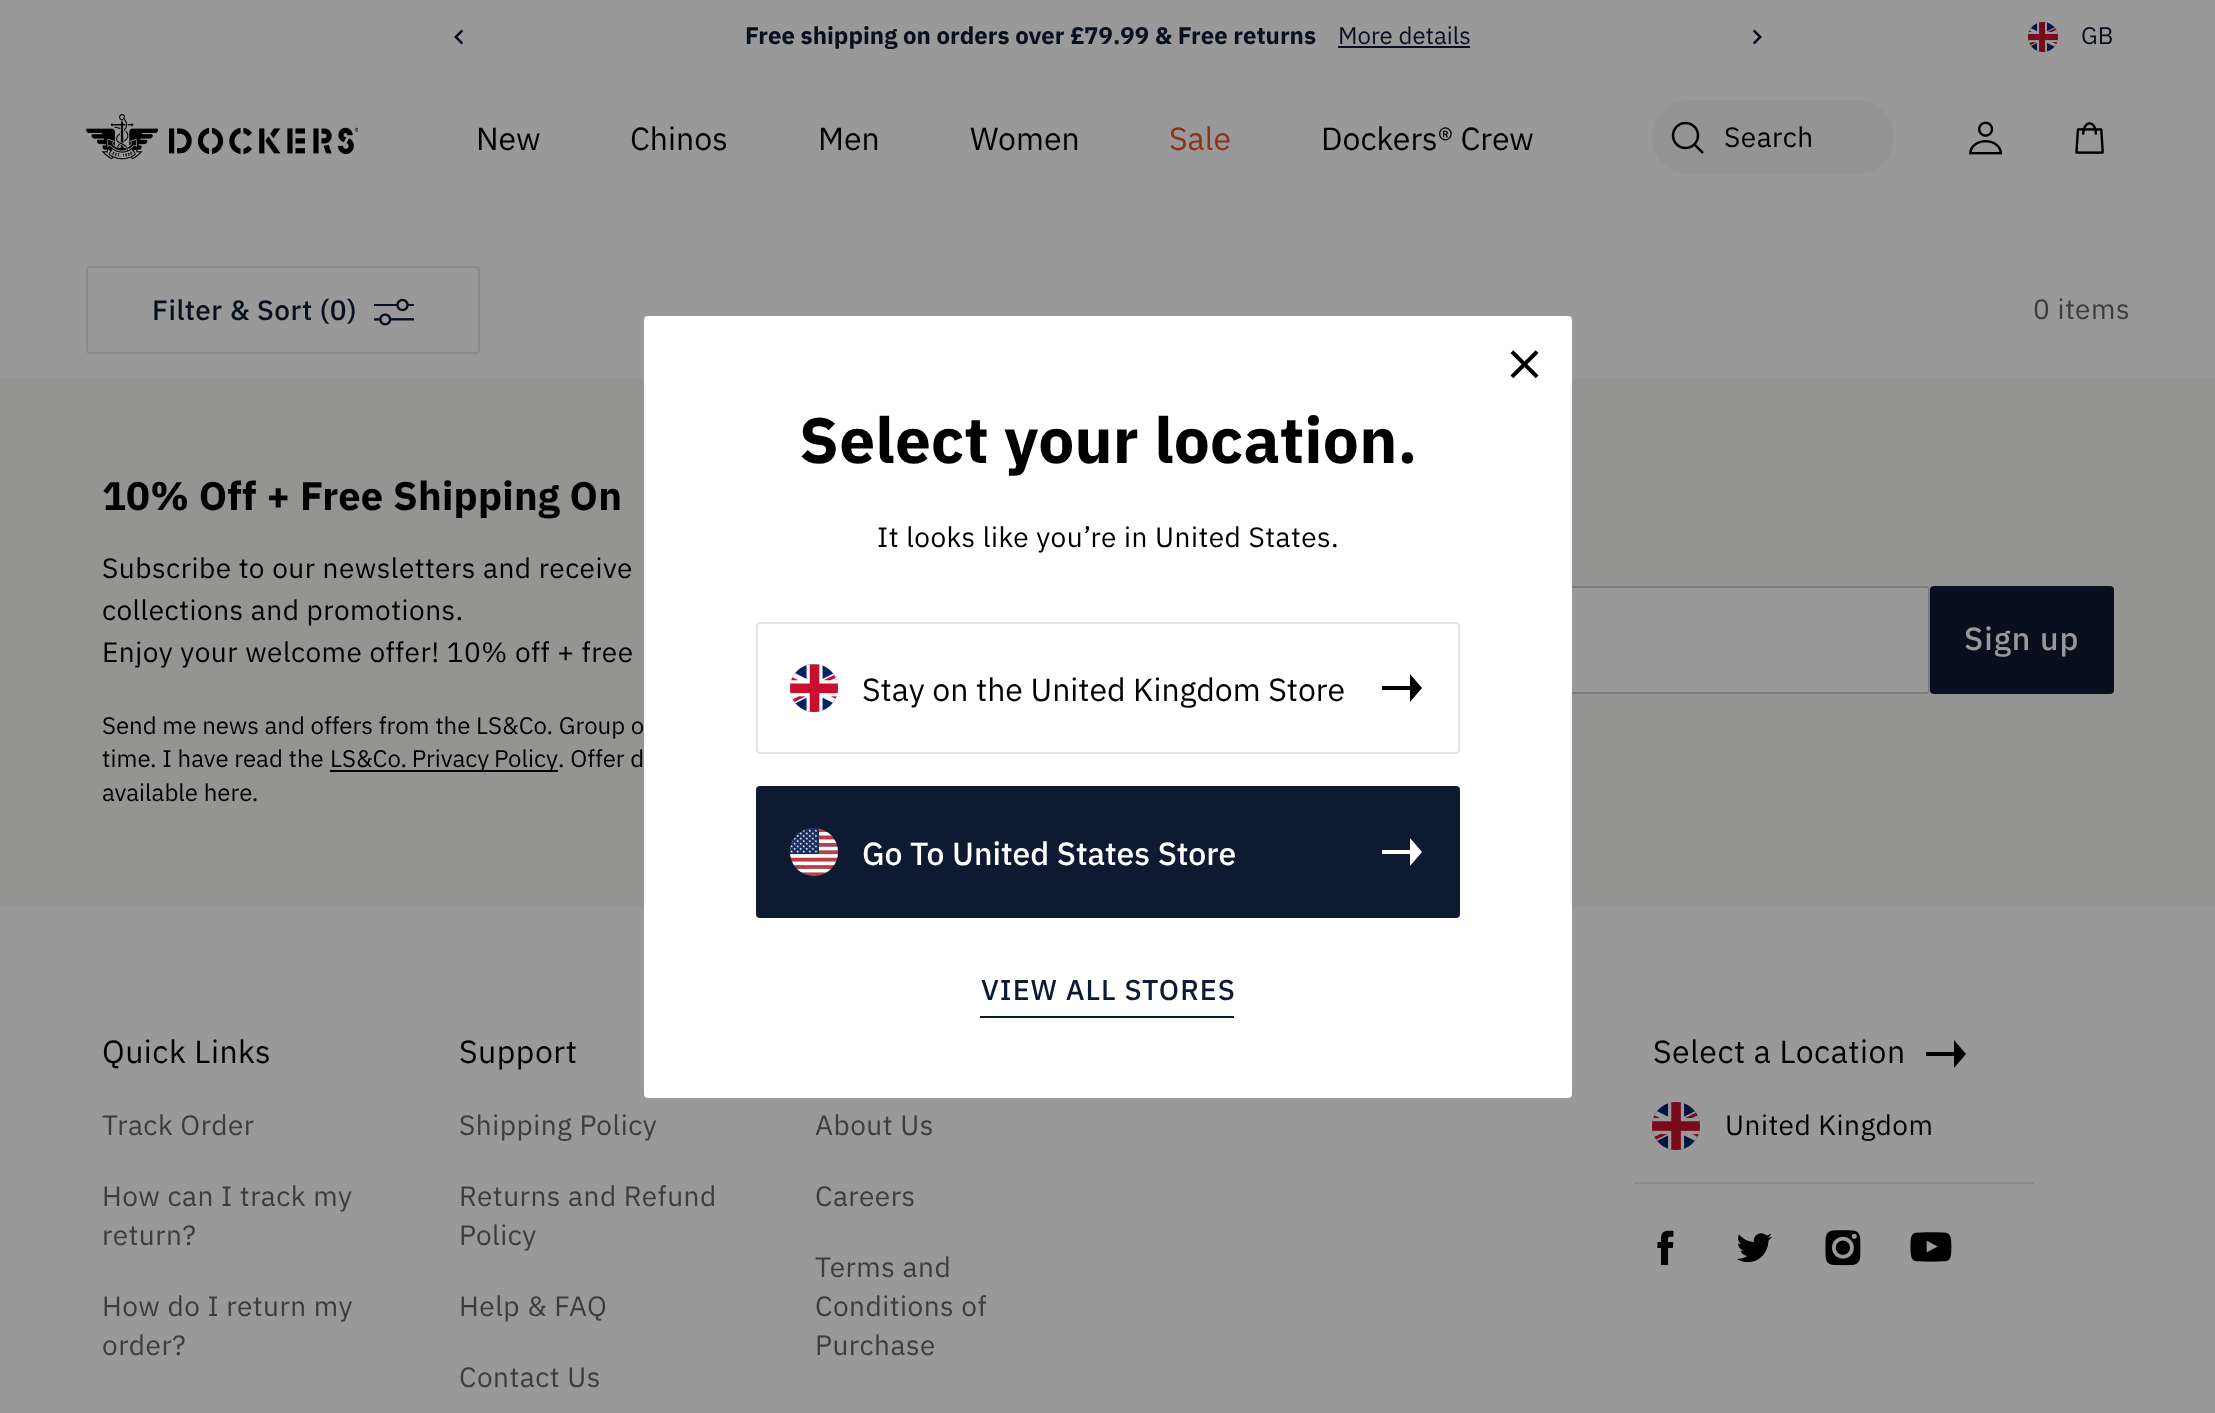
<svg xmlns="http://www.w3.org/2000/svg" width="2215" height="1413" viewBox="0 0 2215 1413">
  <style>
    .t1 { font: bold 24px IBM Plex Sans; fill: #080f1e; }
    .t2 { font: 24px IBM Plex Sans; fill: #080f1e; }
    .t3 { font: 32px IBM Plex Sans; fill: #000; }
    .t4 { font: 32px IBM Plex Sans; fill: #90311c; }
    .t5 { font: 28px IBM Plex Sans; letter-spacing: 0.5px; fill: #000; }
    .t6 { font: 500 28px IBM Plex Sans; letter-spacing: 0.5px; fill: #080f1e; }
    .t7 { font: 28px IBM Plex Sans; letter-spacing: 0.5px; fill: #3d3d3d; }
    .t8 { font: bold 64px IBM Plex Sans; letter-spacing: 0.2px; fill: #000; }
    .t9 { font: 500 32px IBM Plex Sans; fill: #fff; }
    .t10 { font: 500 28.5px IBM Plex Sans; letter-spacing: 1px; fill: #0e1932; }
    .t11 { font: bold 39.8px IBM Plex Sans; letter-spacing: 0.2px; fill: #000; }
    .t12 { font: 24px IBM Plex Sans; fill: #000; }
    .t13 { font: 500 32px IBM Plex Sans; letter-spacing: 1px; fill: #999; }
    .t14 { font: 32px IBM Plex Sans; letter-spacing: 0.5px; fill: #000; }
  </style>
  <rect width="100%" height="100%" fill="#999"/>
  <image x="454" y="29" width="10" height="16" href="images/1.png"/>
  <text x="745" y="44" class="t1">Free shipping on orders over £79.99 &amp; Free returns</text>
  <text x="1338" y="44" class="t2">More details</text>
  <rect x="1338" y="46" width="132" height="2" fill="#080f1e"/>
  <image x="1752" y="29" width="10" height="16" href="images/2.png"/>
  <image x="2028" y="22" width="30" height="30" href="images/3.png"/>
  <text x="2081" y="44" class="t2">GB</text>
  <image x="86" y="114" width="272" height="46" href="images/4.png"/>
  <text x="476" y="150" class="t3">New</text>
  <text x="630" y="150" class="t3">Chinos</text>
  <text x="818" y="150" class="t3">Men</text>
  <text x="970" y="150" class="t3">Women</text>
  <text x="1169" y="150" class="t4">Sale</text>
  <text x="1321" y="150" class="t3">Dockers® Crew</text>
  <rect x="1652" y="100" width="242" height="74" rx="37" fill="#949494"/>
  <image x="1671" y="121" width="33" height="33" href="images/5.png"/>
  <text x="1724" y="147" class="t5">Search</text>
  <image x="1969" y="121" width="33" height="34" href="images/6.png"/>
  <image x="2075" y="122" width="29" height="32" href="images/7.png"/>
  <rect x="87" y="267" width="392" height="86" rx="3" fill="none" stroke="#898989" stroke-width="2"/>
  <text x="152" y="320" class="t6">Filter &amp; Sort (0)</text>
  <image x="374" y="298" width="40" height="28" href="images/8.png"/>
  <text x="2033" y="319" class="t7">0 items</text>
  <rect x="0" y="378" width="2215" height="528" fill="#949492"/>
  <rect x="1255" y="587" width="674" height="106" rx="3" fill="#999" stroke="#7b7d82" stroke-width="2"/>
  <rect x="644" y="316" width="928" height="782" rx="4" fill="#fff"/>
  <image x="1510" y="350" width="29" height="29" href="images/9.png"/>
  <text x="799" y="463" class="t8">Select your location.</text>
  <text x="877" y="547" class="t5">It looks like you’re in United States.</text>
  <rect x="757" y="623" width="702" height="130" rx="3" fill="none" stroke="#e4e4e4" stroke-width="2"/>
  <image x="790" y="664" width="48" height="48" href="images/10.png"/>
  <text x="862" y="701" class="t3">Stay on the United Kingdom Store</text>
  <path d="M1410 686V674L1422 688L1410 702V690H1382V686Z" fill="#000"/>
  <rect x="756" y="786" width="704" height="132" rx="4" fill="#0e1932"/>
  <image x="790" y="828" width="48" height="48" href="images/11.png"/>
  <text x="862" y="865" class="t9">Go To United States Store</text>
  <path d="M1410 850V838L1422 852L1410 866V854H1382V850Z" fill="#fff"/>
  <text x="981" y="1000" class="t10">VIEW ALL STORES</text>
  <rect x="980" y="1016" width="254" height="2" fill="#0e1932"/>
  <text x="102" y="510" class="t11">10% Off + Free Shipping On</text>
  <text x="102" y="578" class="t5">Subscribe to our newsletters and receive</text>
  <text x="102" y="620" class="t5">collections and promotions.</text>
  <text x="102" y="662" class="t5">Enjoy your welcome offer! 10% off + free</text>
  <text x="102" y="734" class="t12">Send me news and offers from the LS&amp;Co. Group o</text>
  <text x="102" y="767" class="t12">time. I have read the</text>
  <rect x="330" y="770" width="228" height="2" fill="#000"/>
  <text x="330" y="767" word-spacing="-1" class="t12">LS&amp;Co. Privacy Policy</text>
  <text x="558" y="767" class="t12">. Offer d</text>
  <text x="102" y="801" class="t12">available here.</text>
  <rect x="1931" y="587" width="182" height="106" rx="3" fill="#080f1e" stroke="#080f1e" stroke-width="2"/>
  <text x="1964" y="650" class="t13">Sign up</text>
  <text x="102" y="1063" class="t14">Quick Links</text>
  <text x="102" y="1135" class="t7">Track Order</text>
  <text x="102" y="1206" class="t7">How can I track my</text>
  <text x="102" y="1245" class="t7">return?</text>
  <text x="102" y="1316" class="t7">How do I return my</text>
  <text x="102" y="1355" class="t7">order?</text>
  <text x="459" y="1063" class="t14">Support</text>
  <text x="459" y="1135" class="t7">Shipping Policy</text>
  <text x="459" y="1206" class="t7">Returns and Refund</text>
  <text x="459" y="1245" class="t7">Policy</text>
  <text x="459" y="1316" class="t7">Help &amp; FAQ</text>
  <text x="459" y="1387" class="t7">Contact Us</text>
  <text x="815" y="1135" class="t7">About Us</text>
  <text x="815" y="1206" class="t7">Careers</text>
  <text x="815" y="1277" class="t7">Terms and</text>
  <text x="815" y="1316" class="t7">Conditions of</text>
  <text x="815" y="1355" class="t7">Purchase</text>
  <text x="1653" y="1063" class="t14">Select a Location</text>
  <path d="M1954 1052V1040L1966 1054L1954 1068V1056H1926V1052Z" fill="#000"/>
  <image x="1652" y="1102" width="48" height="48" href="images/12.png"/>
  <text x="1725" y="1135" class="t5">United Kingdom</text>
  <rect x="1634" y="1182" width="400" height="2" fill="#898989"/>
  <image x="1657" y="1230" width="17" height="36" href="images/13.png"/>
  <image x="1737" y="1233" width="35" height="30" href="images/14.png"/>
  <image x="1825" y="1230" width="36" height="36" href="images/15.png"/>
  <image x="1910" y="1232" width="42" height="30" href="images/16.png"/>
</svg>
